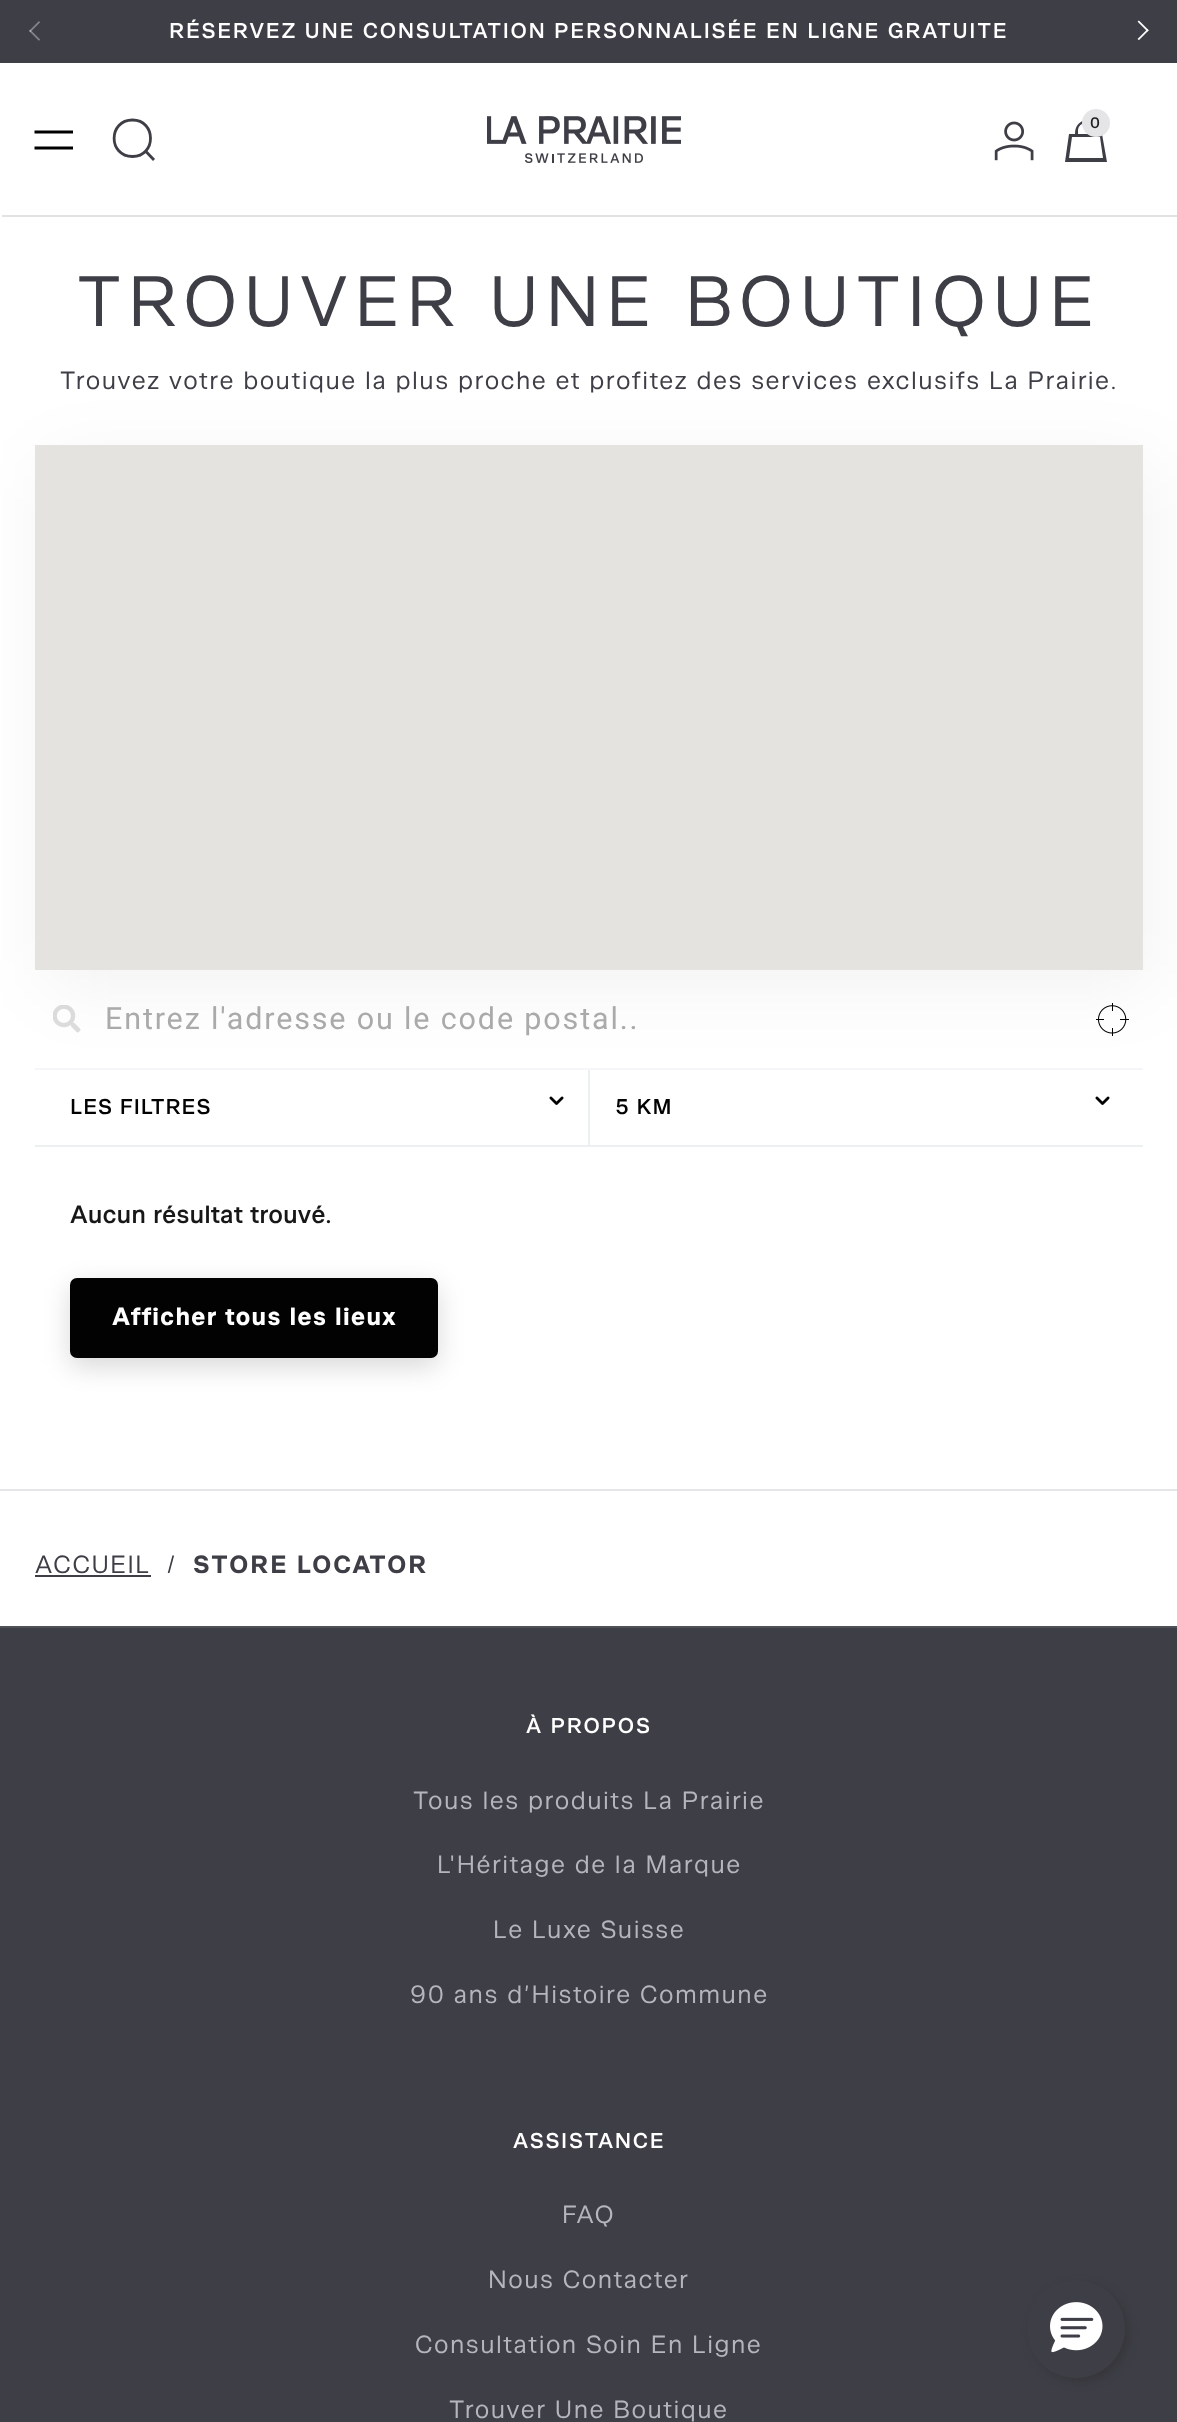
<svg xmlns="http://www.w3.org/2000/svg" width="1177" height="2422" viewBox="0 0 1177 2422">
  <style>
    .t1 { font: 21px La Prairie; letter-spacing: 1.68px; fill: #fff; }
    .t2 { font: 15px La Prairie; fill: #202025; }
    .t3 { font: 300 70px La Prairie; letter-spacing: 7px; fill: #3e3e47; }
    .t4 { font: 300 24.5px La Prairie; letter-spacing: 1.47px; fill: #3e3e47; }
    .t5 { font: 30.5px Roboto; letter-spacing: 1.85px; fill: #aaa; }
    .t6 { font: 21px La Prairie; letter-spacing: 0.9px; fill: #020202; }
    .t7 { font: 24.5px La Prairie; fill: #171717; }
    .t8 { font: bold 24.5px La Prairie; letter-spacing: 0.9px; fill: #fff; }
    .t9 { font: bold 24.5px La Prairie; letter-spacing: 1.47px; fill: #3e3e47; }
    .t10 { font: 300 24.5px La Prairie; letter-spacing: 1.47px; fill: #b5b5be; }
  </style>
  <rect width="100%" height="100%" fill="#fff"/>
  <rect x="0" y="0" width="1177" height="63" fill="#3e3e47"/>
  <image x="29" y="21" width="11" height="20" href="images/1.png"/>
  <text x="169" y="38" class="t1">RÉSERVEZ UNE CONSULTATION PERSONNALISÉE EN LIGNE GRATUITE</text>
  <image x="1137" y="20" width="12" height="21" href="images/2.png"/>
  <path d="M34.5 132H73M34.5 148H73" fill="none" stroke="#000" stroke-width="2.8"/>
  <path d="M145.5 151L154 160M132.5 156.5C108 156.5 108 120 132.5 120C156.5 120 156.5 156.5 132.5 156.5Z" fill="none" stroke="#3e3e47" stroke-width="2.8"/>
  <image x="487" y="116" width="194" height="47" href="images/3.png"/>
  <image x="994" y="121" width="40" height="40" href="images/4.png"/>
  <path d="M1078 131C1078 121 1094 119 1094 134H1078ZM1075 134C1075 116 1097 116 1097 134H1102L1107 162H1065L1069 134ZM1069 158L1072 137H1100L1103 158Z" fill="#3e3e47" fill-rule="evenodd"/>
  <circle cx="1096" cy="123" r="14" fill="#e5e5e7"/>
  <text x="1090" y="128" class="t2">0</text>
  <rect x="2" y="215" width="1175" height="2" fill="#e2e2e3"/>
  <text x="77" y="326" class="t3">TROUVER UNE BOUTIQUE</text>
  <text x="60" y="389" class="t4">Trouvez votre boutique la plus proche et profitez des services exclusifs La Prairie.</text>
  <rect x="35" y="1145" width="1108" height="2" fill="#ecf0f1"/>
  <rect x="588" y="1069" width="2" height="77" fill="#ecf0f1"/>
  <rect x="35" y="1068" width="1108" height="2" fill="#f6f6fa"/>
  <image x="53" y="1005" width="28" height="28" href="images/5.png"/>
  <image x="1096" y="1003" width="33" height="33" href="images/6.png"/>
  <image x="549" y="1096" width="15" height="9" href="images/7.png"/>
  <image x="1095" y="1096" width="15" height="9" href="images/7.png"/>
  <rect x="46" y="462" width="1107" height="525" rx="11" fill="#0000000d" filter="blur(37px)"/>
  <rect x="35" y="445" width="1108" height="525" fill="#e5e3df"/>
  <text x="105" y="1029" class="t5">Entrez l'adresse ou le code postal..</text>
  <text x="70" y="1114" class="t6">LES FILTRES</text>
  <text x="615" y="1114" class="t6">5 KM</text>
  <text x="70" y="1223" class="t7">Aucun résultat trouvé.</text>
  <rect x="70" y="1286" width="368" height="81" rx="7" fill="#00000026" filter="blur(13px)"/>
  <rect x="70" y="1278" width="368" height="80" rx="7" fill="#020202"/>
  <text x="112" y="1325" class="t8">Afficher tous les lieux</text>
  <rect x="0" y="1489" width="1177" height="2" fill="#e6e5e7"/>
  <text x="35" y="1573" class="t4">ACCUEIL</text>
  <rect x="35" y="1575" width="116" height="2" fill="#3e3e47"/>
  <text x="167" y="1573" class="t4">/</text>
  <text x="193" y="1573" class="t9">STORE LOCATOR</text>
  <rect x="0" y="1628" width="1177" height="794" fill="#3e3e47"/>
  <rect x="0" y="1626" width="1177" height="2" fill="#505059"/>
  <text x="526" y="1733" class="t1">À PROPOS</text>
  <text x="413" y="1809" class="t10">Tous les produits La Prairie</text>
  <text x="437" y="1873" class="t10">L'Héritage de la Marque</text>
  <text x="493" y="1938" class="t10">Le Luxe Suisse</text>
  <text x="410" y="2003" class="t10">90 ans d’Histoire Commune</text>
  <text x="513" y="2148" class="t1">ASSISTANCE</text>
  <text x="562" y="2223" class="t10">FAQ</text>
  <text x="488" y="2288" class="t10">Nous Contacter</text>
  <text x="415" y="2353" class="t10">Consultation Soin En Ligne</text>
  <text x="449" y="2418" class="t10">Trouver Une Boutique</text>
  <rect x="1031" y="2284" width="98" height="98" rx="49" fill="#2d2d2d80" filter="blur(4.5px)"/>
  <circle cx="1076" cy="2329" r="49" fill="#3e3e47"/>
  <image x="1050" y="2302" width="53" height="51" href="images/8.png"/>
</svg>
